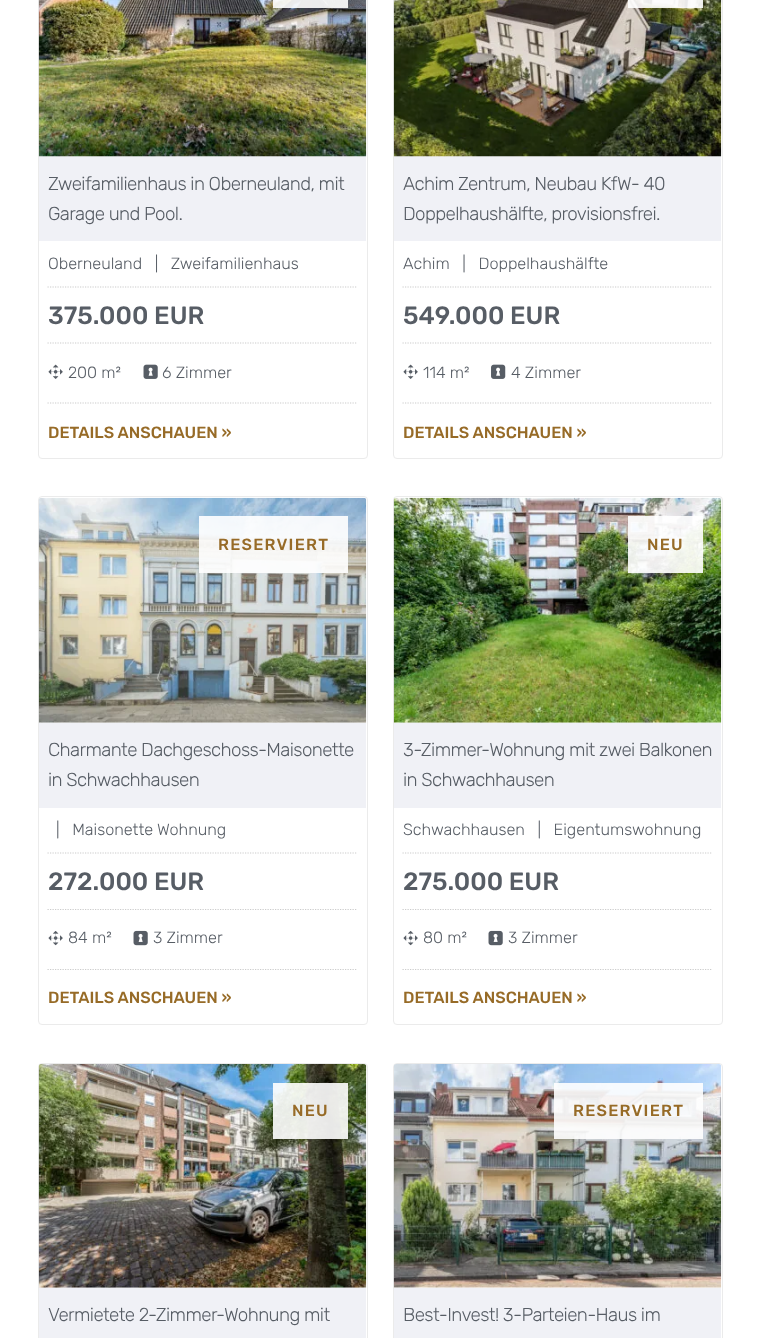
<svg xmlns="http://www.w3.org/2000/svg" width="765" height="1338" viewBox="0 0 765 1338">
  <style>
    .t1 { font: 300 18.75px Rubik; letter-spacing: -0.6px; fill: #575d65; }
    .t2 { font: 300 16.25px Rubik; fill: #575d65; }
    .t3 { font: 500 25px Rubik; fill: #575d65; }
    .t4 { font: 500 16.25px Rubik; fill: #976b27; }
    .t5 { font: 500 16.25px Rubik; letter-spacing: 1.25px; fill: #976b27; }
  </style>
  <rect width="100%" height="100%" fill="#fff"/>
  <rect x="38.5" y="-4.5" width="329" height="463" rx="3.5" fill="none" stroke="#ebebeb"/>
  <rect x="39" y="156" width="327" height="85" fill="#f0f1f6"/>
  <image x="38" y="0" width="329" height="157" href="images/1.png"/>
  <rect x="273" y="0" width="75" height="8" fill="#ffffffe6"/>
  <text x="48" y="190" class="t1">Zweifamilienhaus in Oberneuland, mit</text>
  <text x="48" y="220" class="t1">Garage und Pool.</text>
  <text x="48" y="269" class="t2" xml:space="preserve">Oberneuland   |   Zweifamilienhaus</text>
  <path d="M47.5 287H357.5" fill="none" stroke="#ccc" stroke-width="1.2" stroke-dasharray="1.25 1.25"/>
  <text x="48" y="324" class="t3">375.000 EUR</text>
  <path d="M47.5 343H357.5" fill="none" stroke="#ccc" stroke-width="1.2" stroke-dasharray="1.25 1.25"/>
  <image x="48" y="364" width="15" height="15" href="images/2.png"/>
  <text x="68" y="378" class="t2">200 m²</text>
  <image x="143" y="364" width="15" height="15" href="images/3.png"/>
  <text x="162" y="378" class="t2">6 Zimmer</text>
  <path d="M47.5 403H357.5" fill="none" stroke="#ccc" stroke-width="1.2" stroke-dasharray="1.25 1.25"/>
  <text x="48" y="438" class="t4">DETAILS ANSCHAUEN »</text>
  <rect x="393.5" y="-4.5" width="329" height="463" rx="3.5" fill="none" stroke="#ebebeb"/>
  <rect x="394" y="156" width="327" height="85" fill="#f0f1f6"/>
  <image x="393" y="0" width="329" height="157" href="images/4.png"/>
  <rect x="628" y="0" width="75" height="8" fill="#ffffffe6"/>
  <text x="403" y="190" class="t1">Achim Zentrum, Neubau KfW- 40</text>
  <text x="403" y="220" class="t1">Doppelhaushälfte, provisionsfrei.</text>
  <text x="403" y="269" class="t2" xml:space="preserve">Achim   |   Doppelhaushälfte</text>
  <path d="M402.5 287H712.5" fill="none" stroke="#ccc" stroke-width="1.2" stroke-dasharray="1.25 1.25"/>
  <text x="403" y="324" class="t3">549.000 EUR</text>
  <path d="M402.5 343H712.5" fill="none" stroke="#ccc" stroke-width="1.2" stroke-dasharray="1.25 1.25"/>
  <image x="403" y="364" width="15" height="15" href="images/2.png"/>
  <text x="423" y="378" class="t2">114 m²</text>
  <image x="491" y="364" width="15" height="15" href="images/5.png"/>
  <text x="511" y="378" class="t2">4 Zimmer</text>
  <path d="M402.5 403H712.5" fill="none" stroke="#ccc" stroke-width="1.2" stroke-dasharray="1.25 1.25"/>
  <text x="403" y="438" class="t4">DETAILS ANSCHAUEN »</text>
  <rect x="38.5" y="496.5" width="329" height="528" rx="3.5" fill="none" stroke="#ebebeb"/>
  <image x="38" y="497" width="329" height="226" href="images/6.png"/>
  <rect x="199" y="516" width="149" height="57" fill="#ffffffe6"/>
  <text x="218" y="550" class="t5">RESERVIERT</text>
  <rect x="39" y="723" width="327" height="85" fill="#f0f1f6"/>
  <text x="48" y="756" class="t1">Charmante Dachgeschoss-Maisonette</text>
  <text x="48" y="786" class="t1">in Schwachhausen</text>
  <text x="56" y="835" class="t2" xml:space="preserve">|   Maisonette Wohnung</text>
  <path d="M47.5 853H357.5" fill="none" stroke="#ccc" stroke-width="1.2" stroke-dasharray="1.25 1.25"/>
  <text x="48" y="890" class="t3">272.000 EUR</text>
  <path d="M47.5 909.5H357.5" fill="none" stroke="#ccc" stroke-width="1.2" stroke-dasharray="1.25 1.25"/>
  <image x="48" y="931" width="15" height="15" href="images/7.png"/>
  <text x="68" y="943" class="t2">84 m²</text>
  <image x="133" y="930" width="15" height="16" href="images/8.png"/>
  <text x="153" y="943" class="t2">3 Zimmer</text>
  <path d="M47.5 969.5H357.5" fill="none" stroke="#ccc" stroke-width="1.2" stroke-dasharray="1.25 1.25"/>
  <text x="48" y="1003" class="t4">DETAILS ANSCHAUEN »</text>
  <rect x="393.5" y="496.5" width="329" height="528" rx="3.5" fill="none" stroke="#ebebeb"/>
  <image x="393" y="497" width="329" height="226" href="images/9.png"/>
  <rect x="628" y="516" width="75" height="57" fill="#ffffffe6"/>
  <text x="647" y="550" class="t5">NEU</text>
  <rect x="394" y="723" width="327" height="85" fill="#f0f1f6"/>
  <text x="403" y="756" class="t1">3-Zimmer-Wohnung mit zwei Balkonen</text>
  <text x="403" y="786" class="t1">in Schwachhausen</text>
  <text x="403" y="835" class="t2" xml:space="preserve">Schwachhausen   |   Eigentumswohnung</text>
  <path d="M402.5 853H712.5" fill="none" stroke="#ccc" stroke-width="1.2" stroke-dasharray="1.25 1.25"/>
  <text x="403" y="890" class="t3">275.000 EUR</text>
  <path d="M402.5 909.5H712.5" fill="none" stroke="#ccc" stroke-width="1.2" stroke-dasharray="1.25 1.25"/>
  <image x="403" y="931" width="15" height="15" href="images/7.png"/>
  <text x="423" y="943" class="t2">80 m²</text>
  <image x="488" y="930" width="15" height="16" href="images/8.png"/>
  <text x="508" y="943" class="t2">3 Zimmer</text>
  <path d="M402.5 969.5H712.5" fill="none" stroke="#ccc" stroke-width="1.2" stroke-dasharray="1.25 1.25"/>
  <text x="403" y="1003" class="t4">DETAILS ANSCHAUEN »</text>
  <rect x="38.5" y="1063.5" width="329" height="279" rx="3.5" fill="none" stroke="#ebebeb"/>
  <image x="38" y="1064" width="329" height="224" href="images/10.png"/>
  <rect x="273" y="1083" width="75" height="56" fill="#ffffffe6"/>
  <text x="292" y="1116" class="t5">NEU</text>
  <rect x="39" y="1288" width="327" height="50" fill="#f0f1f6"/>
  <text x="48" y="1321" class="t1">Vermietete 2-Zimmer-Wohnung mit</text>
  <rect x="393.5" y="1063.5" width="329" height="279" rx="3.5" fill="none" stroke="#ebebeb"/>
  <image x="393" y="1064" width="329" height="224" href="images/11.png"/>
  <rect x="554" y="1083" width="149" height="56" fill="#ffffffe6"/>
  <text x="573" y="1116" class="t5">RESERVIERT</text>
  <rect x="394" y="1288" width="327" height="50" fill="#f0f1f6"/>
  <text x="403" y="1321" class="t1">Best-Invest! 3-Parteien-Haus im</text>
</svg>
